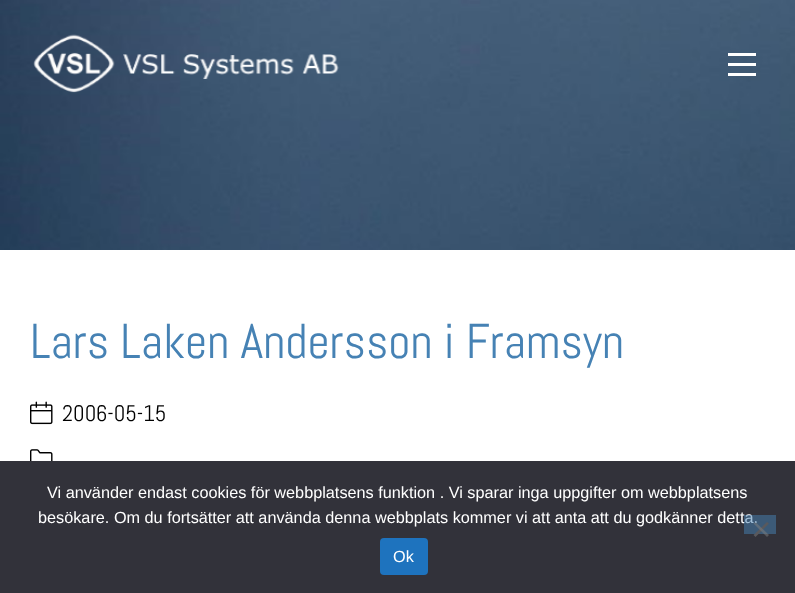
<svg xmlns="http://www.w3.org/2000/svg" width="795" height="593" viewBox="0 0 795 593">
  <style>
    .t1 { font: 48.75px Abel; fill: #4682b4; }
    .t2 { font: 22.5px Abel; fill: #000; }
    .t3 { font: 16.25px Liberation Sans; fill: #fff; }
  </style>
  <rect width="100%" height="100%" fill="#fff"/>
  <image x="0" y="0" width="795" height="250" href="images/2.png"/>
  <image x="33" y="34" width="306" height="59" href="images/1.png"/>
  <rect x="728" y="53" width="28" height="3" fill="#fff"/>
  <rect x="728" y="63" width="28" height="3" fill="#fff"/>
  <rect x="728" y="73" width="28" height="3" fill="#fff"/>
  <text x="30" y="358" class="t1">Lars Laken Andersson i Framsyn</text>
  <image x="30" y="401" width="23" height="24" href="images/3.png"/>
  <text x="62" y="421" class="t2">2006-05-15</text>
  <image x="30" y="449" width="23" height="12" href="images/4.png"/>
  <rect x="0" y="461" width="795" height="132" fill="#32323a"/>
  <text x="47" y="498" class="t3">Vi använder endast cookies för webbplatsens funktion . Vi sparar inga uppgifter om webbplatsens</text>
  <text x="38" y="523" class="t3">besökare. Om du fortsätter att använda denna webbplats kommer vi att anta att du godkänner detta.</text>
  <rect x="744" y="515" width="32" height="19" fill="#4682b480"/>
  <path d="M767 522L769 523.5L755.5 537L753.5 535Z" fill="#59595d"/>
  <path d="M753.5 523.5L755.5 522L769 535L767 537Z" fill="#80808080"/>
  <rect x="380" y="538" width="48" height="37" rx="4" fill="#1e73be"/>
  <text x="393" y="562" class="t3">Ok</text>
</svg>
